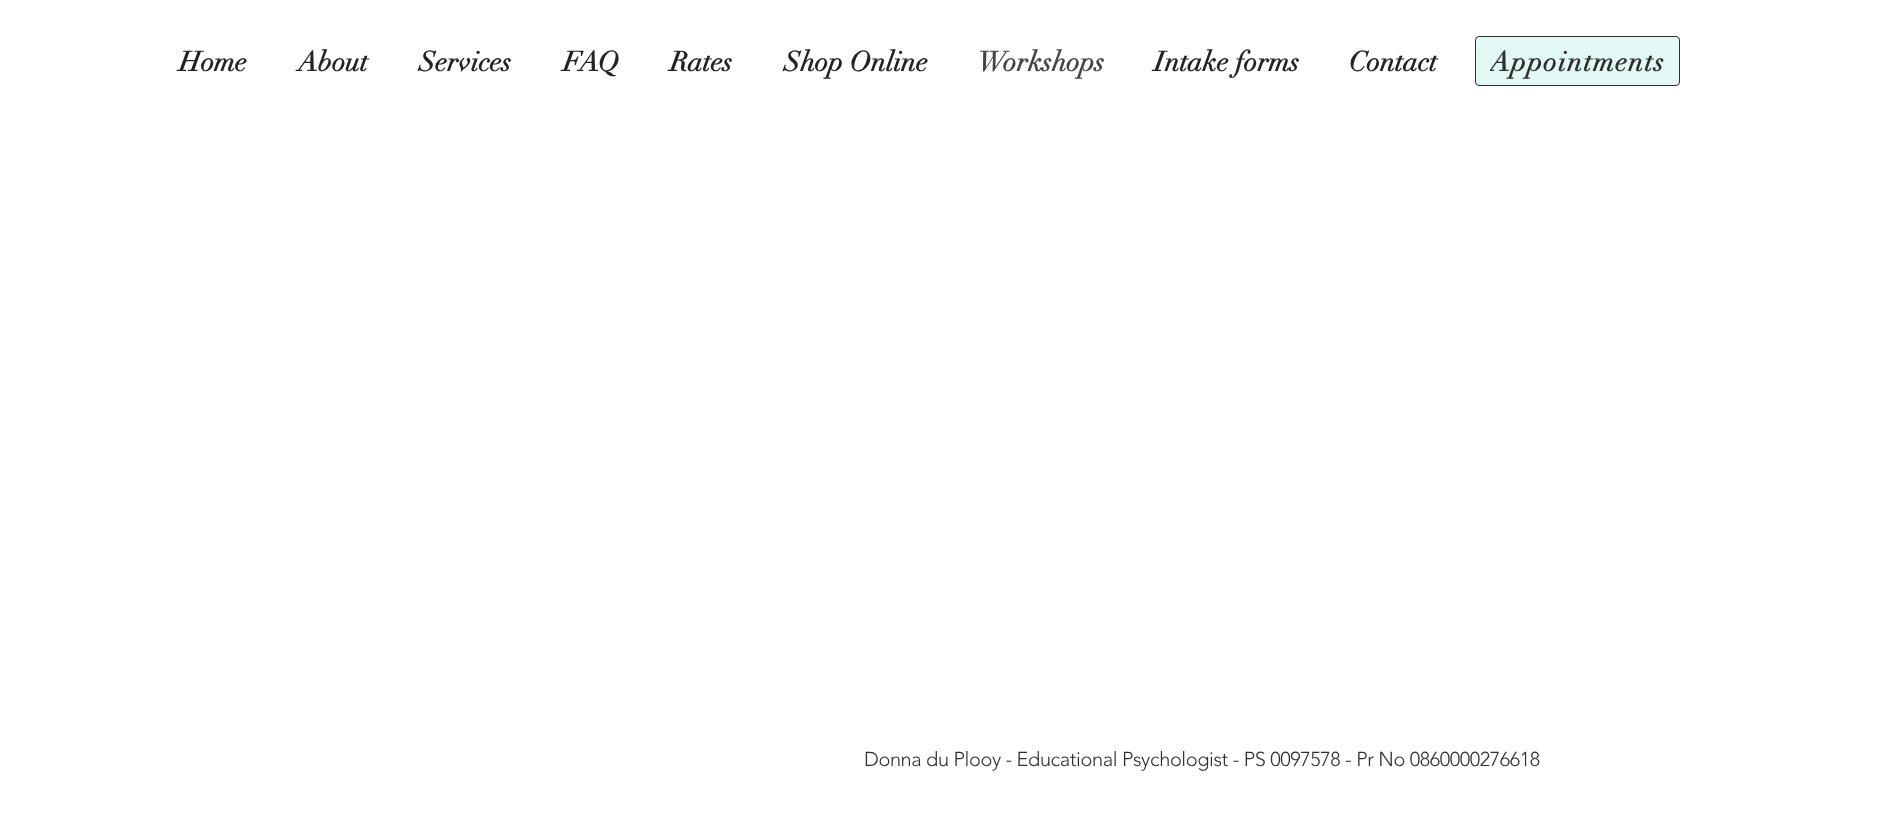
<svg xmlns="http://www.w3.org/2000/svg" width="1897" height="817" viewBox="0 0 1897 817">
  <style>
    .t1 { font: bold 27.5px didot; fill: #232323; }
    .t2 { font: bold 27.5px didot; fill: #444; }
    .t3 { font: bold 27.5px didot; letter-spacing: 1.4px; fill: #2f2f2e; }
    .t4 { font: 300 20px 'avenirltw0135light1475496'; letter-spacing: -0.4px; fill: #2f2f2e; }
  </style>
  <defs>
    <clipPath id="clip1"><rect x="1490" y="45" width="175" height="34"/></clipPath>
  </defs>
  <rect width="100%" height="100%" fill="#fff"/>
  <text x="179" y="71" class="t1">Home</text>
  <text x="298" y="71" class="t1">About</text>
  <text x="419" y="71" class="t1">Services</text>
  <text x="563" y="71" class="t1">FAQ</text>
  <text x="670" y="71" class="t1">Rates</text>
  <text x="784" y="71" class="t1">Shop Online</text>
  <text x="978" y="71" class="t2">Workshops</text>
  <text x="1154" y="71" class="t1">Intake forms</text>
  <text x="1349" y="71" class="t1">Contact</text>
  <rect x="1475.5" y="36.5" width="204" height="49" rx="3.5" fill="#e2f8f4" stroke="#2f2f2e"/>
  <g clip-path="url(#clip1)">
    <text x="1490" y="71" class="t3">Appointments</text>
  </g>
  <text x="864" y="766" class="t4">Donna du Plooy - Educational Psychologist - PS 0097578 - Pr No 0860000276618</text>
</svg>
